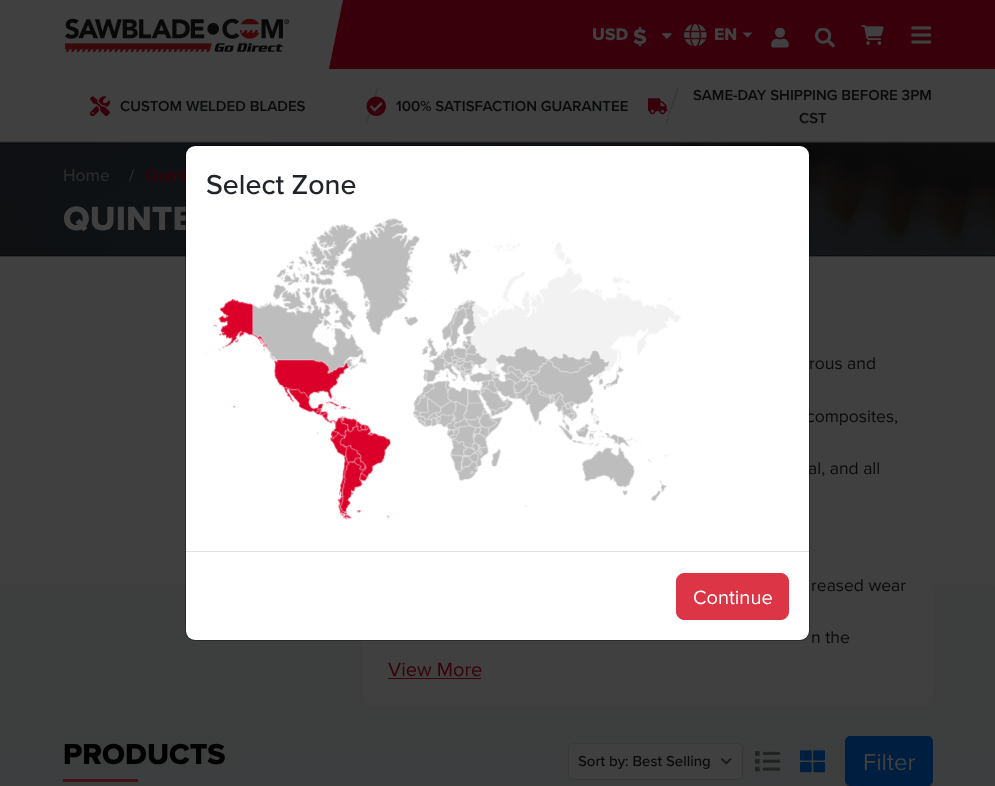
<svg xmlns="http://www.w3.org/2000/svg" width="995" height="786" viewBox="0 0 995 786">
  <style>
    .t1 { font: 800 17.5px Proxima Nova; fill: #404040; }
    .t2 { font: 800 22px Proxima Nova; fill: #404040; }
    .t3 { font: 600 15px Proxima Nova; fill: #090a0b; }
    .t4 { font: 500 17.5px Proxima Nova; fill: #2a2a2a; }
    .t5 { font: 500 17.5px Proxima Nova; fill: #37000b; }
    .t6 { font: 800 35px Proxima Nova; fill: #404040; }
    .t7 { font: 17.5px Proxima Nova; fill: #090a0b; }
    .t8 { font: 20px Proxima Nova; fill: #37000b; }
    .t9 { font: 800 30px Proxima Nova; fill: #000; }
    .t10 { font: 500 15px Proxima Nova; fill: #090a0b; }
    .t11 { font: 24px Proxima Nova; fill: #404040; }
    .t12 { font: 500 28.5px Proxima Nova; fill: #212529; }
    .t13 { font: 20px Proxima Nova; fill: #fff; }
  </style>
  <defs>
    <linearGradient id="g1" gradientUnits="userSpaceOnUse" x1="497" y1="256" x2="498" y2="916"><stop offset="0" stop-color="#3f3f3f"/><stop offset="1" stop-color="#3c3d3e"/></linearGradient>
  </defs>
  <rect width="100%" height="100%" fill="#404040"/>
  <rect x="329" y="0" width="666" height="69" fill="#37000b"/>
  <path d="M61 0V69H329L343 0Z" fill="#404040"/>
  <image x="64" y="18" width="225" height="35" href="images/1.png"/>
  <text x="592" y="40" class="t1">USD</text>
  <text x="633" y="44" class="t2">$</text>
  <image x="662" y="33" width="10" height="6" href="images/2.png"/>
  <image x="684" y="23" width="23" height="24" href="images/3.png"/>
  <text x="714" y="40" class="t1">EN</text>
  <path d="M742.5 32.5H752.5L747.5 37.5Z" fill="#404040"/>
  <image x="771" y="28" width="18" height="20" href="images/4.png"/>
  <image x="815" y="28" width="20" height="20" href="images/5.png"/>
  <image x="861" y="25" width="23" height="20" href="images/6.png"/>
  <image x="911" y="26" width="21" height="18" href="images/7.png"/>
  <rect x="0" y="141" width="995" height="1" fill="#383838"/>
  <image x="90" y="96" width="20" height="20" href="images/8.png"/>
  <text x="120" y="111" class="t3">CUSTOM WELDED BLADES</text>
  <path d="M377 88L378.5 88.5L366.5 124.5L365.5 124Z" fill="#383838"/>
  <image x="366" y="96" width="20" height="20" href="images/9.png"/>
  <text x="396" y="111" class="t3">100% SATISFACTION GUARANTEE</text>
  <image x="648" y="98" width="20" height="17" href="images/10.png"/>
  <path d="M677 88L678.5 88.5L666.5 124.5L665.5 124Z" fill="#383838"/>
  <text x="693" y="100" class="t3">SAME-DAY SHIPPING BEFORE 3PM</text>
  <text x="799" y="123" class="t3">CST</text>
  <image x="0" y="142" width="995" height="115" href="images/11.png"/>
  <text x="63" y="181" class="t4">Home</text>
  <text x="129" y="181" class="t4">/</text>
  <text x="145" y="181" class="t5">Quint</text>
  <text x="63" y="230" class="t6">QUINTE</text>
  <rect x="0" y="585" width="995" height="201" fill="url(#g1)"/>
  <rect x="363" y="294" width="570" height="412" rx="10" fill="#404040"/>
  <text x="809" y="369" class="t7">rous and</text>
  <text x="806" y="422" class="t7">composites,</text>
  <text x="808" y="474" class="t7">al, and all</text>
  <text x="811" y="591" class="t7">reased wear</text>
  <text x="811" y="643" class="t7">n the</text>
  <text x="388" y="676" class="t8">View More</text>
  <rect x="388" y="678" width="93" height="1" fill="#37000b"/>
  <text x="63" y="764" class="t9">PRODUCTS</text>
  <rect x="63" y="779" width="75" height="3" fill="#401414"/>
  <rect x="568.5" y="743.5" width="174" height="36" rx="4.5" fill="#404040" stroke="#383838"/>
  <text x="578" y="766" class="t10">Sort by: Best Selling</text>
  <image x="721" y="758" width="11" height="7" href="images/12.png"/>
  <image x="755" y="751" width="25" height="21" href="images/13.png"/>
  <image x="800" y="750" width="25" height="23" href="images/14.png"/>
  <rect x="845.5" y="736.5" width="87" height="49" rx="4.5" fill="#001f40" stroke="#001f40"/>
  <text x="863" y="770" class="t11">Filter</text>
  <rect x="185.5" y="145.5" width="624" height="495" rx="9.5" fill="none" stroke="#0000002e"/>
  <rect x="186" y="146" width="623" height="494" rx="9" fill="#fff"/>
  <rect x="185.5" y="145.5" width="624" height="495" rx="9.5" fill="none" stroke="#0000002e"/>
  <text x="206" y="194" class="t12">Select Zone</text>
  <image x="206" y="218" width="475" height="302" href="images/15.png"/>
  <rect x="186" y="551" width="623" height="1" fill="#dee2e6"/>
  <rect x="676.5" y="573.5" width="112" height="46" rx="7.5" fill="#dc3545" stroke="#dc3545"/>
  <text x="693" y="604" class="t13">Continue</text>
</svg>
